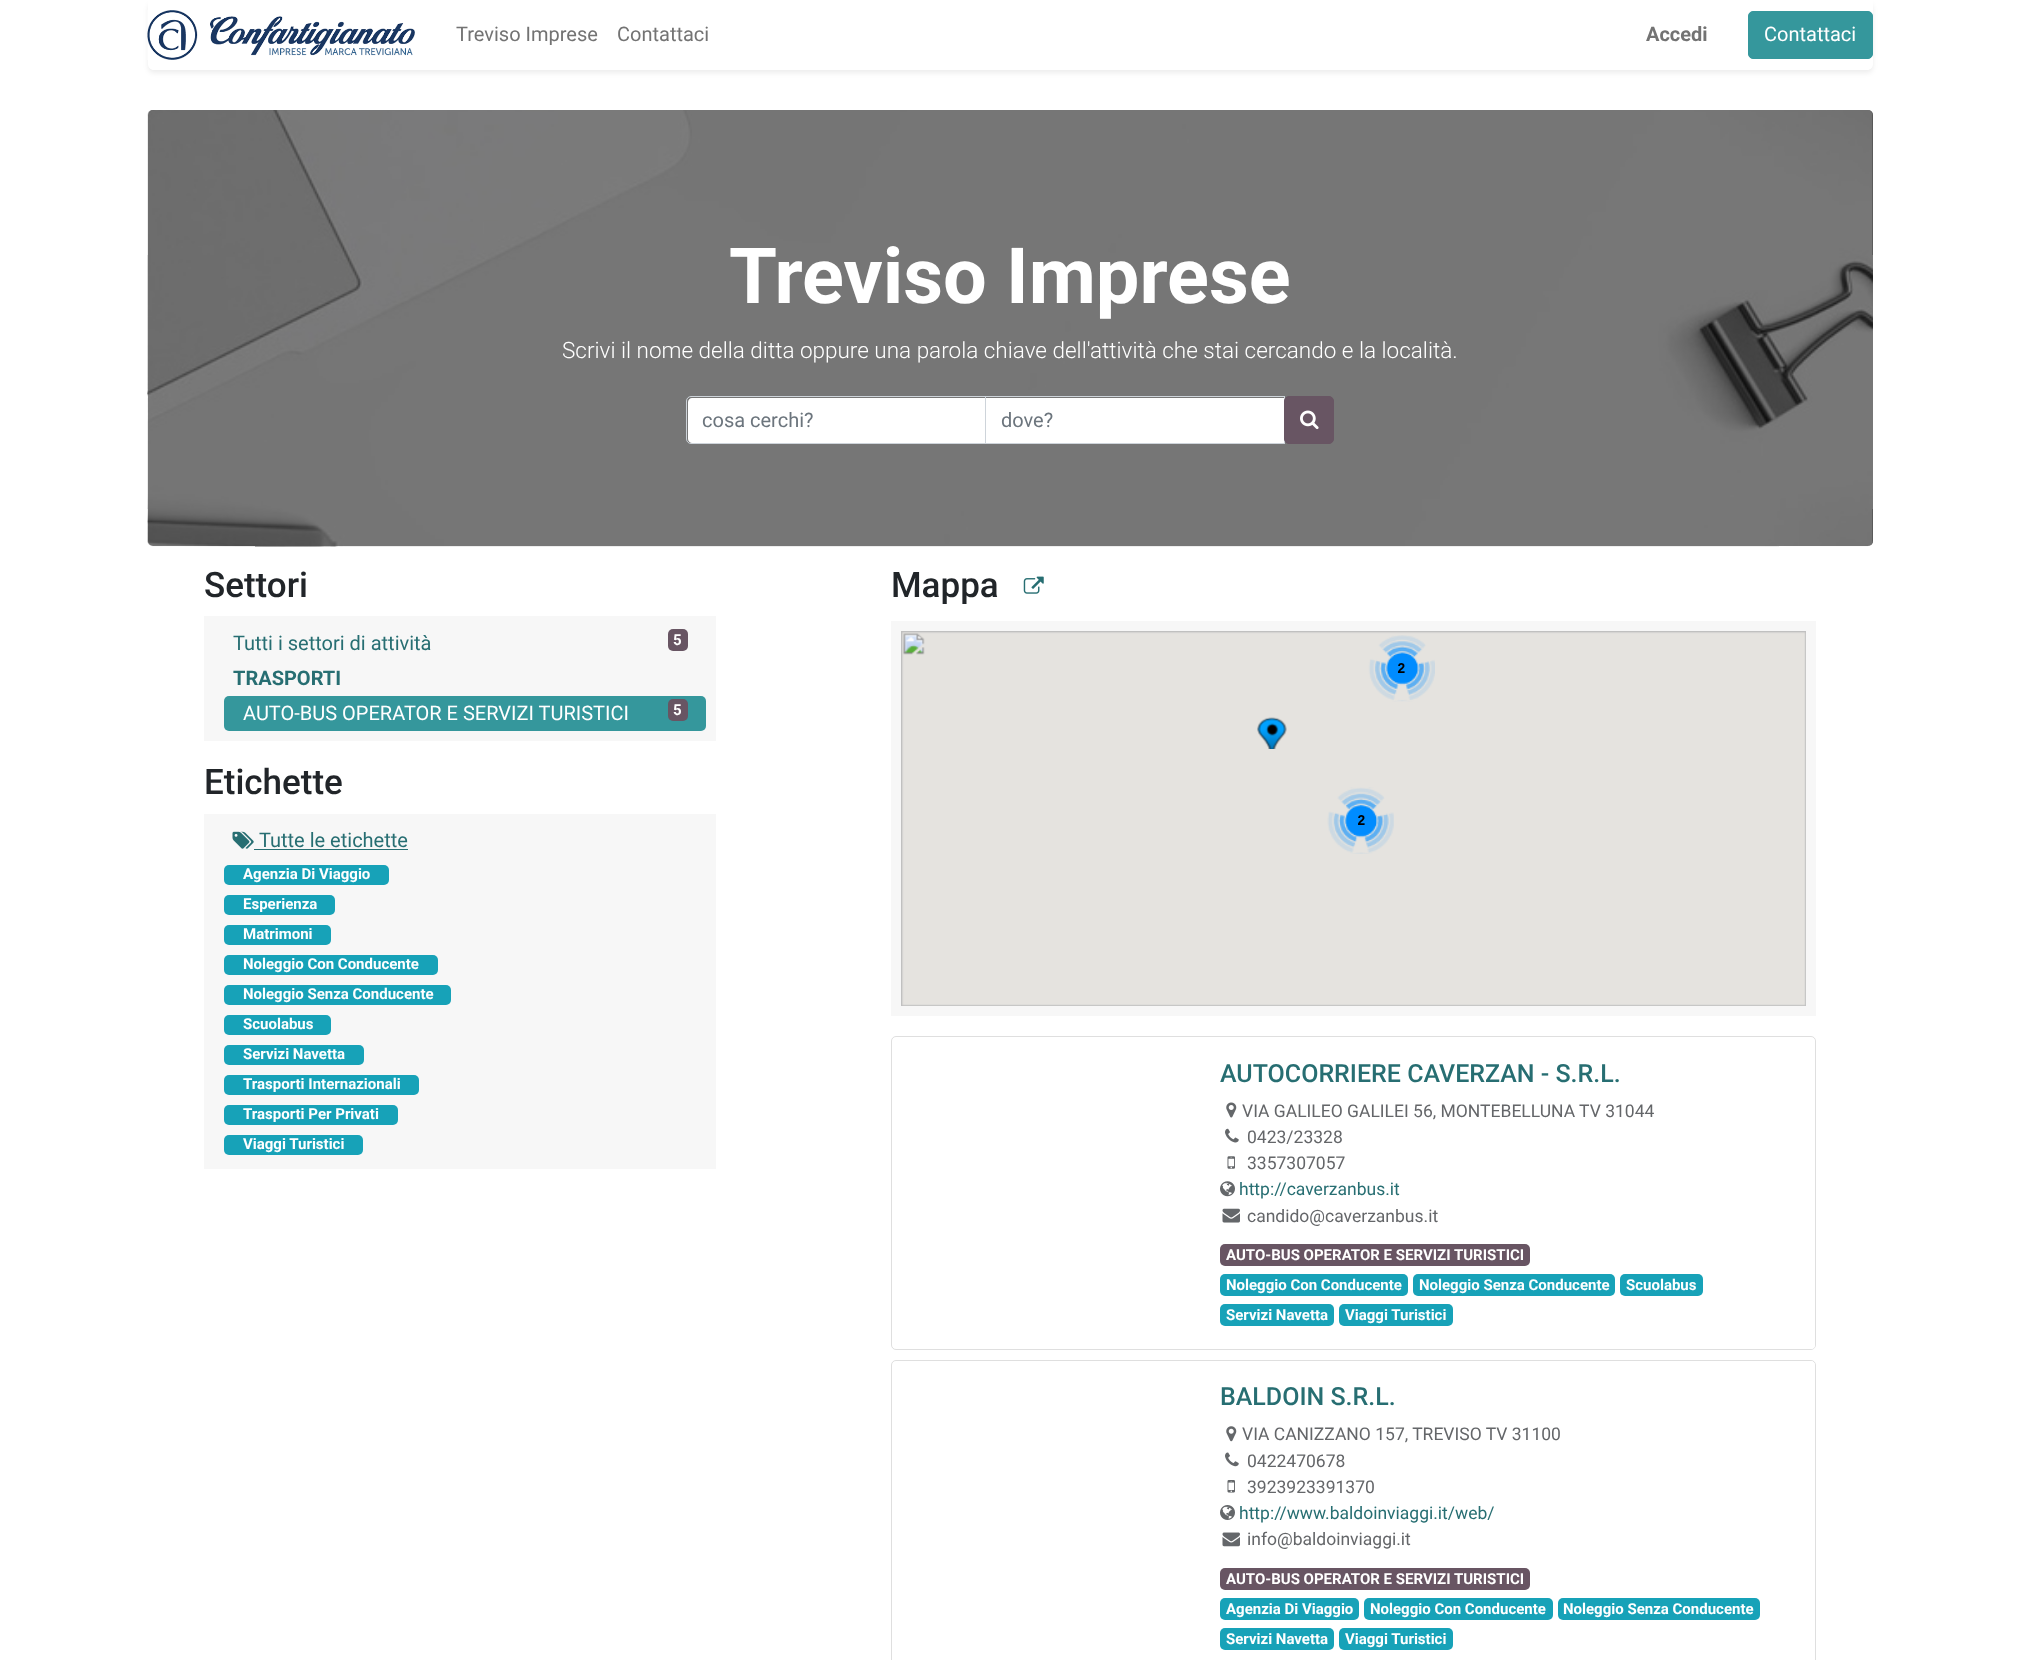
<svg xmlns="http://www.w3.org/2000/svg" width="2020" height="1660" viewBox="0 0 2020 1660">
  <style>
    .t1 { font: 20px Roboto; fill: #737373; }
    .t2 { font: bold 20px Roboto; fill: #737373; }
    .t3 { font: 20px Roboto; fill: #fff; }
    .t4 { font: bold 77.5px Roboto; fill: #fff; }
    .t5 { font: 300 22.5px Roboto; fill: #fff; }
    .t6 { font: 20px Roboto; fill: #6c757d; }
    .t7 { font: 500 35px Roboto; fill: #212529; }
    .t8 { font: 20px Roboto; fill: #276e72; }
    .t9 { font: bold 15px Roboto; fill: #fff; }
    .t10 { font: bold 20px Roboto; fill: #276e72; }
    .t11 { font: 500 25px Roboto; fill: #276e72; }
    .t12 { font: 17.5px Roboto; fill: #646669; }
    .t13 { font: 17.5px Roboto; fill: #276e72; }
  </style>
  <rect width="100%" height="100%" fill="#fff"/>
  <rect x="148" y="3" width="1725" height="70" rx="6" fill="#00000012" filter="blur(2.5px)"/>
  <path d="M148 0H1873V64C1873 67.5 1870.5 70 1867 70H154C150.5 70 148 67.5 148 64Z" fill="#fff"/>
  <image x="147" y="10" width="268" height="50" href="images/1.png"/>
  <text x="456" y="41" class="t1">Treviso Imprese</text>
  <text x="617" y="41" class="t1">Contattaci</text>
  <text x="1646" y="41" class="t2">Accedi</text>
  <rect x="1748.5" y="11.5" width="124" height="47" rx="4.5" fill="#35979c" stroke="#35979c"/>
  <text x="1764" y="41" class="t3">Contattaci</text>
  <rect x="148" y="110" width="1725" height="436" rx="5" fill="#808080"/>
  <image x="147" y="110" width="1726" height="437" href="images/2.png"/>
  <rect x="148" y="110" width="1725" height="436" rx="5" fill="#00000080"/>
  <text x="729" y="303" class="t4">Treviso Imprese</text>
  <text x="562" y="358" class="t5">Scrivi il nome della ditta oppure una parola chiave dell'attività che stai cercando e la località.</text>
  <path d="M692 398H985V443H692C690 443 688 441 688 439V402C688 400 690 398 692 398Z" fill="#fff"/>
  <path d="M691 396.5H985.5V443.5H691C688.5 443.5 686.5 441.5 686.5 439V401C686.5 398.5 688.5 396.5 691 396.5Z" fill="none" stroke="#ced4da"/>
  <text x="702" y="427" class="t6">cosa cerchi?</text>
  <rect x="986" y="398" width="298" height="45" fill="#fff"/>
  <rect x="985.5" y="396.5" width="299" height="47" fill="none" stroke="#ced4da"/>
  <text x="1001" y="427" class="t6">dove?</text>
  <rect x="1284.5" y="396.5" width="49" height="47" rx="4.5" fill="#685563" stroke="#685563"/>
  <image x="1300" y="410" width="19" height="20" href="images/3.png"/>
  <text x="204" y="597" class="t7">Settori</text>
  <rect x="204" y="616" width="512" height="125" fill="#f7f7f7"/>
  <text x="233" y="650" class="t8">Tutti i settori di attività</text>
  <rect x="668" y="629" width="20" height="22" rx="5" fill="#685563"/>
  <text x="673" y="645" class="t9">5</text>
  <text x="233" y="685" class="t10">TRASPORTI</text>
  <rect x="224" y="696" width="482" height="35" rx="5" fill="#35979c"/>
  <text x="243" y="720" class="t3">AUTO-BUS OPERATOR E SERVIZI TURISTICI</text>
  <rect x="668" y="699" width="20" height="22" rx="5" fill="#685563"/>
  <text x="673" y="715" class="t9">5</text>
  <text x="204" y="794" class="t7">Etichette</text>
  <rect x="204" y="814" width="512" height="355" fill="#f7f7f7"/>
  <image x="232" y="831" width="22" height="18" href="images/4.png"/>
  <text x="259" y="847" class="t8">Tutte le etichette</text>
  <rect x="254" y="849" width="154" height="1" fill="#276e72"/>
  <rect x="224" y="865" width="165" height="20" rx="5" fill="#17a2b8"/>
  <text x="243" y="879" class="t9">Agenzia Di Viaggio</text>
  <rect x="224" y="895" width="111" height="20" rx="5" fill="#17a2b8"/>
  <text x="243" y="909" class="t9">Esperienza</text>
  <rect x="224" y="925" width="107" height="20" rx="5" fill="#17a2b8"/>
  <text x="243" y="939" class="t9">Matrimoni</text>
  <rect x="224" y="955" width="214" height="20" rx="5" fill="#17a2b8"/>
  <text x="243" y="969" class="t9">Noleggio Con Conducente</text>
  <rect x="224" y="985" width="227" height="20" rx="5" fill="#17a2b8"/>
  <text x="243" y="999" class="t9">Noleggio Senza Conducente</text>
  <rect x="224" y="1015" width="107" height="20" rx="5" fill="#17a2b8"/>
  <text x="243" y="1029" class="t9">Scuolabus</text>
  <rect x="224" y="1045" width="140" height="20" rx="5" fill="#17a2b8"/>
  <text x="243" y="1059" class="t9">Servizi Navetta</text>
  <rect x="224" y="1075" width="195" height="20" rx="5" fill="#17a2b8"/>
  <text x="243" y="1089" class="t9">Trasporti Internazionali</text>
  <rect x="224" y="1105" width="174" height="20" rx="5" fill="#17a2b8"/>
  <text x="243" y="1119" class="t9">Trasporti Per Privati</text>
  <rect x="224" y="1135" width="139" height="20" rx="5" fill="#17a2b8"/>
  <text x="243" y="1149" class="t9">Viaggi Turistici</text>
  <text x="891" y="597" class="t7">Mappa</text>
  <image x="1023" y="576" width="21" height="18" href="images/5.png"/>
  <rect x="891" y="621" width="925" height="395" fill="#f7f7f7"/>
  <image x="901" y="631" width="905" height="375" href="images/6.png"/>
  <rect x="891.5" y="1036.5" width="924" height="313" rx="4.5" fill="none" stroke="#dfdfdf"/>
  <rect x="1200" y="1038" width="615" height="311" rx="4" fill="#ffffffe6"/>
  <text x="1220" y="1082" class="t11">AUTOCORRIERE CAVERZAN - S.R.L.</text>
  <image x="1226" y="1102" width="11" height="16" href="images/7.png"/>
  <text x="1242" y="1117" class="t12">VIA GALILEO GALILEI 56, MONTEBELLUNA TV 31044</text>
  <image x="1225" y="1128" width="14" height="15" href="images/8.png"/>
  <text x="1247" y="1143" class="t12">0423/23328</text>
  <image x="1227" y="1156" width="8" height="13" href="images/9.png"/>
  <text x="1247" y="1169" class="t12">3357307057</text>
  <image x="1220" y="1181" width="15" height="16" href="images/10.png"/>
  <text x="1239" y="1195" class="t13">http://caverzanbus.it</text>
  <image x="1222" y="1208" width="18" height="15" href="images/11.png"/>
  <text x="1247" y="1222" class="t12">candido@caverzanbus.it</text>
  <rect x="1220" y="1244" width="310" height="22" rx="5" fill="#685563"/>
  <text x="1226" y="1260" class="t9">AUTO-BUS OPERATOR E SERVIZI TURISTICI</text>
  <rect x="1220" y="1274" width="188" height="22" rx="5" fill="#17a2b8"/>
  <text x="1226" y="1290" class="t9">Noleggio Con Conducente</text>
  <rect x="1413" y="1274" width="202" height="22" rx="5" fill="#17a2b8"/>
  <text x="1419" y="1290" class="t9">Noleggio Senza Conducente</text>
  <rect x="1620" y="1274" width="83" height="22" rx="5" fill="#17a2b8"/>
  <text x="1626" y="1290" class="t9">Scuolabus</text>
  <rect x="1220" y="1304" width="114" height="22" rx="5" fill="#17a2b8"/>
  <text x="1226" y="1320" class="t9">Servizi Navetta</text>
  <rect x="1339" y="1304" width="114" height="22" rx="5" fill="#17a2b8"/>
  <text x="1345" y="1320" class="t9">Viaggi Turistici</text>
  <rect x="891.5" y="1360.5" width="924" height="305" rx="4.5" fill="none" stroke="#dfdfdf"/>
  <path d="M1204 1361H1811C1813 1361 1815 1363 1815 1365V1660H1200V1365C1200 1363 1202 1361 1204 1361Z" fill="#ffffffe6"/>
  <text x="1220" y="1405" class="t11">BALDOIN S.R.L.</text>
  <image x="1226" y="1426" width="11" height="16" href="images/12.png"/>
  <text x="1242" y="1440" class="t12">VIA CANIZZANO 157, TREVISO TV 31100</text>
  <image x="1225" y="1452" width="14" height="15" href="images/13.png"/>
  <text x="1247" y="1467" class="t12">0422470678</text>
  <image x="1227" y="1480" width="8" height="13" href="images/14.png"/>
  <text x="1247" y="1493" class="t12">3923923391370</text>
  <image x="1220" y="1505" width="15" height="15" href="images/15.png"/>
  <text x="1239" y="1519" class="t13">http://www.baldoinviaggi.it/web/</text>
  <image x="1222" y="1532" width="18" height="15" href="images/16.png"/>
  <text x="1247" y="1545" class="t12">info@baldoinviaggi.it</text>
  <rect x="1220" y="1568" width="310" height="22" rx="5" fill="#685563"/>
  <text x="1226" y="1584" class="t9">AUTO-BUS OPERATOR E SERVIZI TURISTICI</text>
  <rect x="1220" y="1598" width="139" height="22" rx="5" fill="#17a2b8"/>
  <text x="1226" y="1614" class="t9">Agenzia Di Viaggio</text>
  <rect x="1364" y="1598" width="189" height="22" rx="5" fill="#17a2b8"/>
  <text x="1370" y="1614" class="t9">Noleggio Con Conducente</text>
  <rect x="1558" y="1598" width="202" height="22" rx="5" fill="#17a2b8"/>
  <text x="1563" y="1614" class="t9">Noleggio Senza Conducente</text>
  <rect x="1220" y="1628" width="114" height="22" rx="5" fill="#17a2b8"/>
  <text x="1226" y="1644" class="t9">Servizi Navetta</text>
  <rect x="1339" y="1628" width="114" height="22" rx="5" fill="#17a2b8"/>
  <text x="1345" y="1644" class="t9">Viaggi Turistici</text>
</svg>
